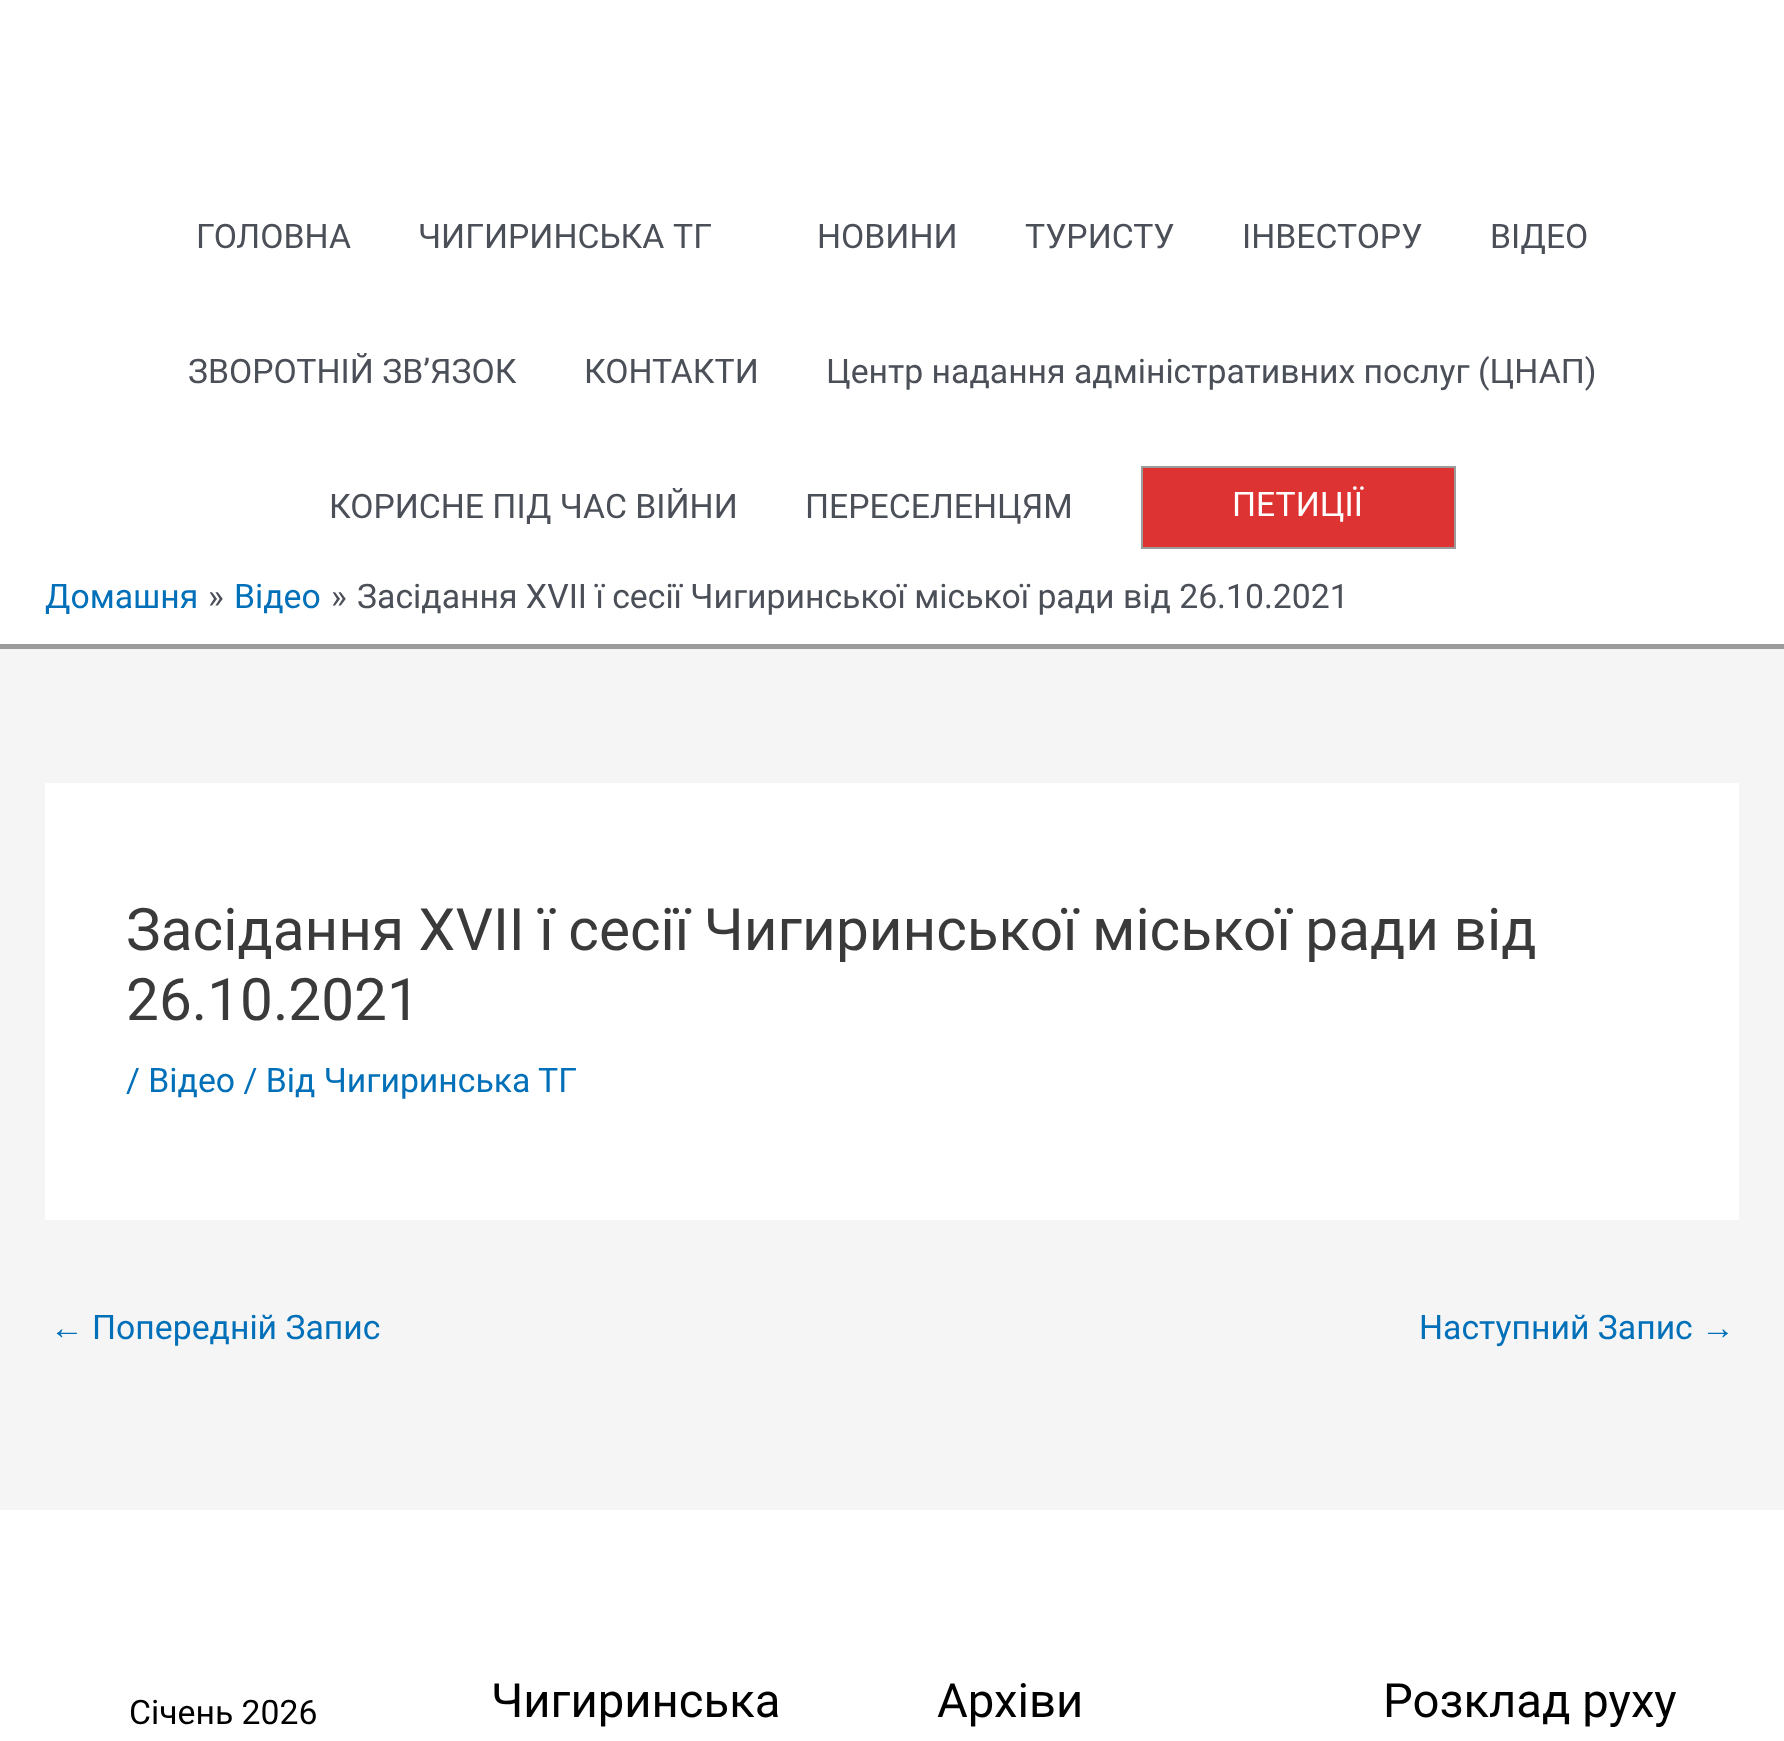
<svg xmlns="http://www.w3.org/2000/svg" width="1784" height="1741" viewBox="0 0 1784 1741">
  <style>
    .t1 { font: 33.75px Roboto; fill: #4b4f58; }
    .t2 { font: 33.75px Roboto; fill: #fff; }
    .t3 { font: 33.75px Roboto; fill: #0170b9; }
    .t4 { font: 58.5px Roboto; fill: #3a3a3a; }
    .t5 { font: 33.75px Liberation Sans; fill: #0170b9; }
    .t6 { font: 33.75px Roboto; fill: #000; }
    .t7 { font: 47.25px Roboto; fill: #000; }
  </style>
  <rect width="100%" height="100%" fill="#f5f5f5"/>
  <rect x="0" y="0" width="1784" height="644" fill="#fff"/>
  <rect x="0" y="644" width="1784" height="5" fill="#9b9b9b"/>
  <text x="196" y="248" class="t1">ГОЛОВНА</text>
  <text x="418" y="248" word-spacing="1" class="t1">ЧИГИРИНСЬКА ТГ</text>
  <text x="817" y="248" class="t1">НОВИНИ</text>
  <text x="1025" y="248" class="t1">ТУРИСТУ</text>
  <text x="1242" y="248" class="t1">ІНВЕСТОРУ</text>
  <text x="1490" y="248" class="t1">ВІДЕО</text>
  <text x="188" y="383" class="t1">ЗВОРОТНІЙ ЗВ’ЯЗОК</text>
  <text x="584" y="383" class="t1">КОНТАКТИ</text>
  <text x="826" y="383" class="t1">Центр надання адміністративних послуг (ЦНАП)</text>
  <text x="329" y="518" class="t1">КОРИСНЕ ПІД ЧАС ВІЙНИ</text>
  <text x="805" y="518" class="t1">ПЕРЕСЕЛЕНЦЯМ</text>
  <rect x="1142" y="467" width="313" height="81" fill="#d33" stroke="#9b9b9b" stroke-width="2"/>
  <text x="1232" y="516" class="t2">ПЕТИЦІЇ</text>
  <text x="45" y="608" class="t3">Домашня</text>
  <text x="208" y="608" class="t1">»</text>
  <text x="234" y="608" class="t3">Відео</text>
  <text x="331" y="608" class="t1">»</text>
  <text x="357" y="608" class="t1">Засідання XVІI ї сесії Чигиринської міської ради від 26.10.2021</text>
  <rect x="45" y="783" width="1694" height="437" fill="#fff"/>
  <text x="126" y="950" class="t4">Засідання XVІI ї сесії Чигиринської міської ради від</text>
  <text x="126" y="1020" class="t4">26.10.2021</text>
  <text x="126" y="1092" class="t3">/ Відео / Від Чигиринська ТГ</text>
  <text x="50" y="1339" class="t5">←</text>
  <text x="92" y="1339" class="t3">Попередній Запис</text>
  <text x="1419" y="1339" class="t3">Наступний Запис</text>
  <text x="1701" y="1339" class="t5">→</text>
  <rect x="0" y="1510" width="1784" height="231" fill="#fff"/>
  <text x="129" y="1724" class="t6">Січень 2026</text>
  <text x="491" y="1717" class="t7">Чигиринська</text>
  <text x="937" y="1717" class="t7">Архіви</text>
  <text x="1383" y="1717" class="t7">Розклад руху</text>
</svg>
